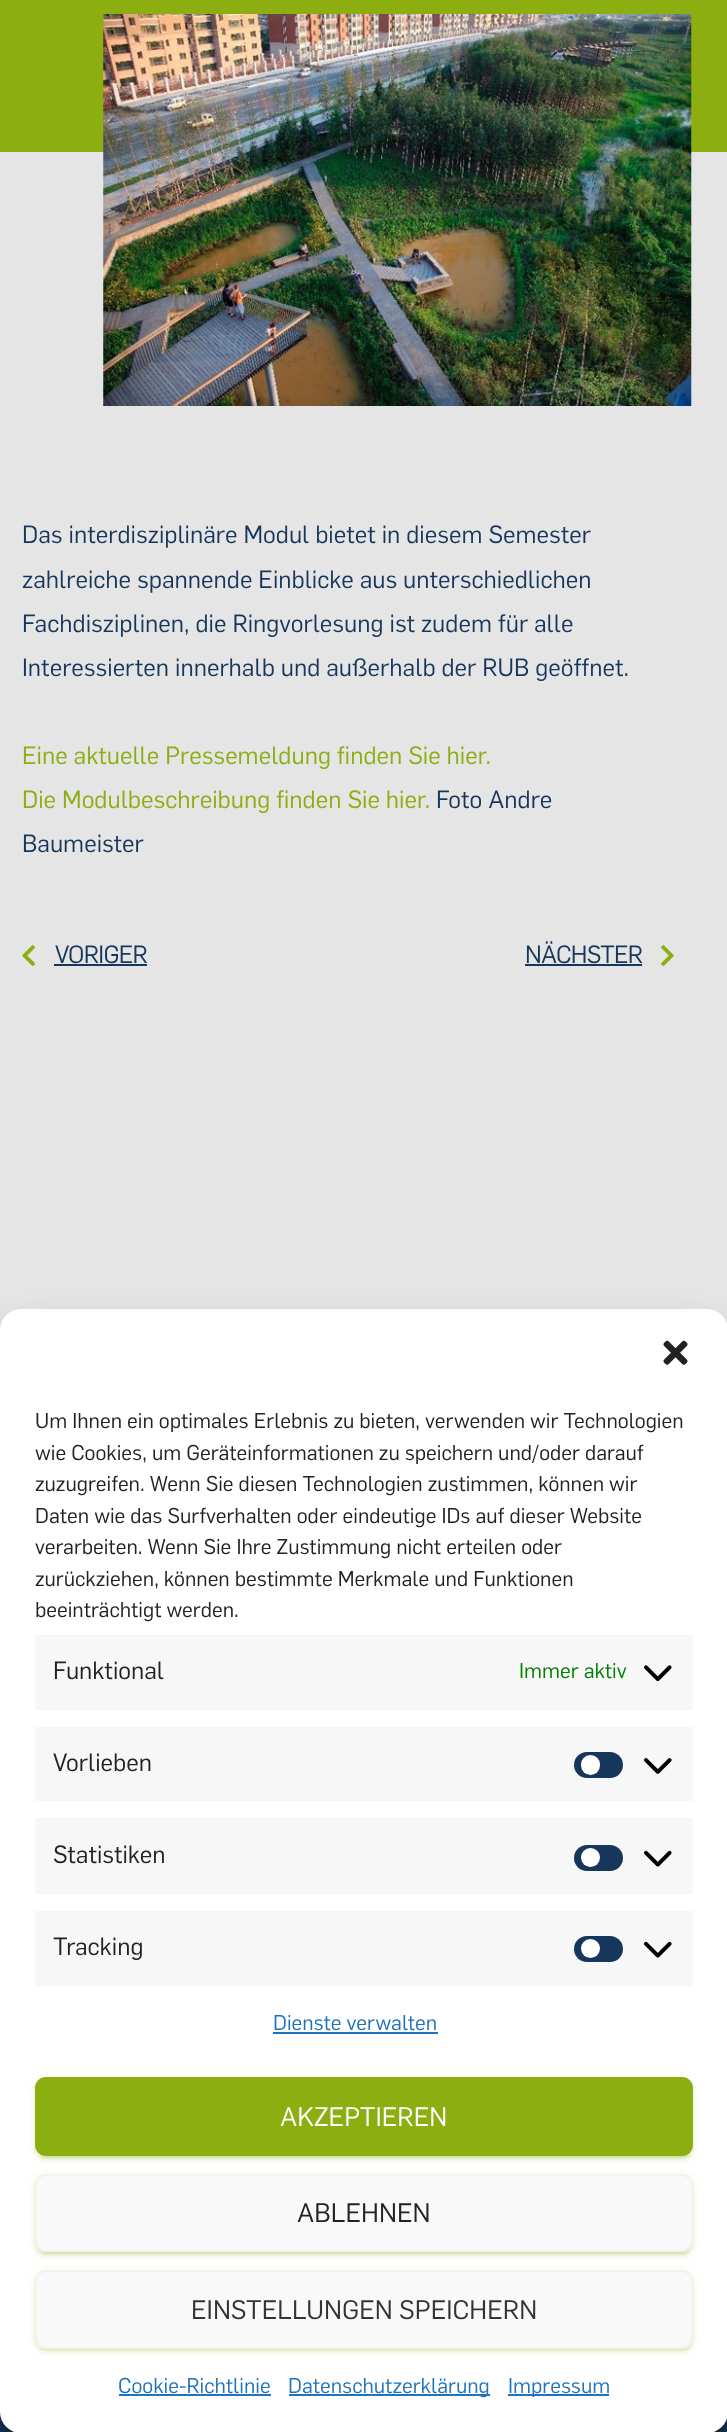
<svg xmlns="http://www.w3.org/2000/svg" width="727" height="2432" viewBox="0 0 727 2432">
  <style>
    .t1 { font: 24.5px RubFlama; fill: #17365c; }
    .t2 { font: 24.5px RubFlama; fill: #8dae10; }
    .t3 { font: 24.5px RubFlama; letter-spacing: -0.75px; fill: #17365c; }
    .t4 { font: 21px RubFlama; fill: #222; }
    .t5 { font: 24.5px RubFlama; fill: #222; }
    .t6 { font: 21px RubFlama; fill: #008000; }
    .t7 { font: 21px RubFlama; fill: #1e73be; }
    .t8 { font: 26.25px RubFlama; fill: #fff; }
    .t9 { font: 26.25px RubFlama; fill: #222; }
    .t10 { font: 26.25px RubFlama; fill: #333; }
  </style>
  <rect width="100%" height="100%" fill="#e5e5e5"/>
  <rect x="0" y="0" width="727" height="152" fill="#8dae10"/>
  <image x="103" y="14" width="589" height="392" href="images/1.png"/>
  <text x="22" y="543" class="t1">Das interdisziplinäre Modul bietet in diesem Semester</text>
  <text x="22" y="588" class="t1">zahlreiche spannende Einblicke aus unterschiedlichen</text>
  <text x="22" y="632" class="t1">Fachdisziplinen, die Ringvorlesung ist zudem für alle</text>
  <text x="22" y="676" class="t1">Interessierten innerhalb und außerhalb der RUB geöffnet.</text>
  <text x="22" y="764" class="t2">Eine aktuelle Pressemeldung finden Sie hier.</text>
  <text x="22" y="808" class="t2">Die Modulbeschreibung finden Sie hier.</text>
  <text x="436" y="808" class="t1">Foto Andre</text>
  <text x="22" y="852" class="t1">Baumeister</text>
  <image x="22" y="945" width="13" height="21" href="images/2.png"/>
  <text x="55" y="963" class="t3">VORIGER</text>
  <rect x="54" y="964" width="93" height="2" fill="#17365c"/>
  <text x="525" y="963" class="t3">NÄCHSTER</text>
  <rect x="525" y="964" width="117" height="2" fill="#17365c"/>
  <image x="661" y="945" width="13" height="21" href="images/3.png"/>
  <rect x="0" y="2412" width="727" height="20" fill="#17365c"/>
  <image x="0" y="1323" width="727" height="7" href="images/4.png"/>
  <rect x="0" y="1320" width="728" height="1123" rx="21" fill="#0000003b" filter="blur(5px)"/>
  <rect x="0" y="1327" width="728" height="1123" rx="21" fill="#00000030" filter="blur(17.5px)"/>
  <rect x="0" y="1309" width="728" height="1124" rx="21" fill="#fff"/>
  <image x="663" y="1340" width="25" height="25" href="images/5.png"/>
  <text x="35" y="1428" class="t4">Um Ihnen ein optimales Erlebnis zu bieten, verwenden wir Technologien</text>
  <text x="35" y="1460" class="t4">wie Cookies, um Geräteinformationen zu speichern und/oder darauf</text>
  <text x="35" y="1491" class="t4">zuzugreifen. Wenn Sie diesen Technologien zustimmen, können wir</text>
  <text x="35" y="1523" class="t4">Daten wie das Surfverhalten oder eindeutige IDs auf dieser Website</text>
  <text x="35" y="1554" class="t4">verarbeiten. Wenn Sie Ihre Zustimmung nicht erteilen oder</text>
  <text x="35" y="1586" class="t4">zurückziehen, können bestimmte Merkmale und Funktionen</text>
  <text x="35" y="1617" class="t4">beeinträchtigt werden.</text>
  <rect x="35" y="1635" width="658" height="75" fill="#f7f7f7"/>
  <text x="53" y="1679" class="t5">Funktional</text>
  <text x="519" y="1678" class="t6">Immer aktiv</text>
  <image x="644" y="1665" width="28" height="17" href="images/6.png"/>
  <rect x="35" y="1727" width="658" height="74" fill="#f7f7f7"/>
  <text x="53" y="1771" class="t5">Vorlieben</text>
  <rect x="574" y="1752" width="49" height="26" rx="13" fill="#17365c"/>
  <rect x="581" y="1755" width="19" height="20" rx="9.5" fill="#fff"/>
  <image x="644" y="1758" width="28" height="16" href="images/7.png"/>
  <rect x="35" y="1818" width="658" height="76" fill="#f7f7f7"/>
  <text x="53" y="1863" class="t5">Statistiken</text>
  <rect x="574" y="1845" width="49" height="26" rx="13" fill="#17365c"/>
  <circle cx="590.5" cy="1857.5" r="9.5" fill="#fff"/>
  <image x="644" y="1850" width="28" height="17" href="images/8.png"/>
  <rect x="35" y="1911" width="658" height="75" fill="#f7f7f7"/>
  <text x="53" y="1955" class="t5">Tracking</text>
  <rect x="574" y="1936" width="49" height="26" rx="13" fill="#17365c"/>
  <circle cx="590.5" cy="1948.5" r="9.5" fill="#fff"/>
  <image x="644" y="1941" width="28" height="17" href="images/8.png"/>
  <text x="273" y="2030" class="t7">Dienste verwalten</text>
  <rect x="273" y="2032" width="165" height="2" fill="#1e73be"/>
  <rect x="35" y="2079" width="658" height="79" rx="11" fill="#8dae101f" filter="blur(4.5px)"/>
  <rect x="39" y="2086" width="651" height="72" rx="7" fill="#8dae1033" filter="blur(1px)"/>
  <rect x="35" y="2081" width="658" height="79" rx="11" fill="#8dae1024" filter="blur(2px)"/>
  <rect x="36" y="2078" width="656" height="77" rx="10" fill="#8dae10" stroke="#8dae10" stroke-width="2"/>
  <text x="280" y="2126" class="t8">AKZEPTIEREN</text>
  <rect x="35" y="2175" width="658" height="79" rx="11" fill="#8dae101f" filter="blur(4.5px)"/>
  <rect x="39" y="2182" width="651" height="72" rx="7" fill="#8dae1033" filter="blur(1px)"/>
  <rect x="35" y="2177" width="658" height="79" rx="11" fill="#8dae1024" filter="blur(2px)"/>
  <rect x="36" y="2175" width="656" height="76" rx="10" fill="#f9f9f9" stroke="#f2f2f2" stroke-width="2"/>
  <text x="297" y="2222" class="t9">ABLEHNEN</text>
  <rect x="35" y="2272" width="658" height="78" rx="11" fill="#8dae101f" filter="blur(4.5px)"/>
  <rect x="39" y="2279" width="651" height="71" rx="7" fill="#8dae1033" filter="blur(1px)"/>
  <rect x="35" y="2273" width="658" height="79" rx="11" fill="#8dae1024" filter="blur(2px)"/>
  <rect x="36" y="2271" width="656" height="77" rx="10" fill="#f9f9f9" stroke="#f2f2f2" stroke-width="2"/>
  <text x="191" y="2319" class="t10">EINSTELLUNGEN SPEICHERN</text>
  <text x="118" y="2393" class="t7">Cookie-Richtlinie</text>
  <rect x="119" y="2394" width="152" height="2" fill="#1e73be"/>
  <rect x="289" y="2394" width="201" height="2" fill="#1e73be"/>
  <text x="288" y="2393" class="t7">Datenschutzerklärung</text>
  <rect x="508" y="2394" width="101" height="2" fill="#1e73be"/>
  <text x="508" y="2393" class="t7">Impressum</text>
</svg>
